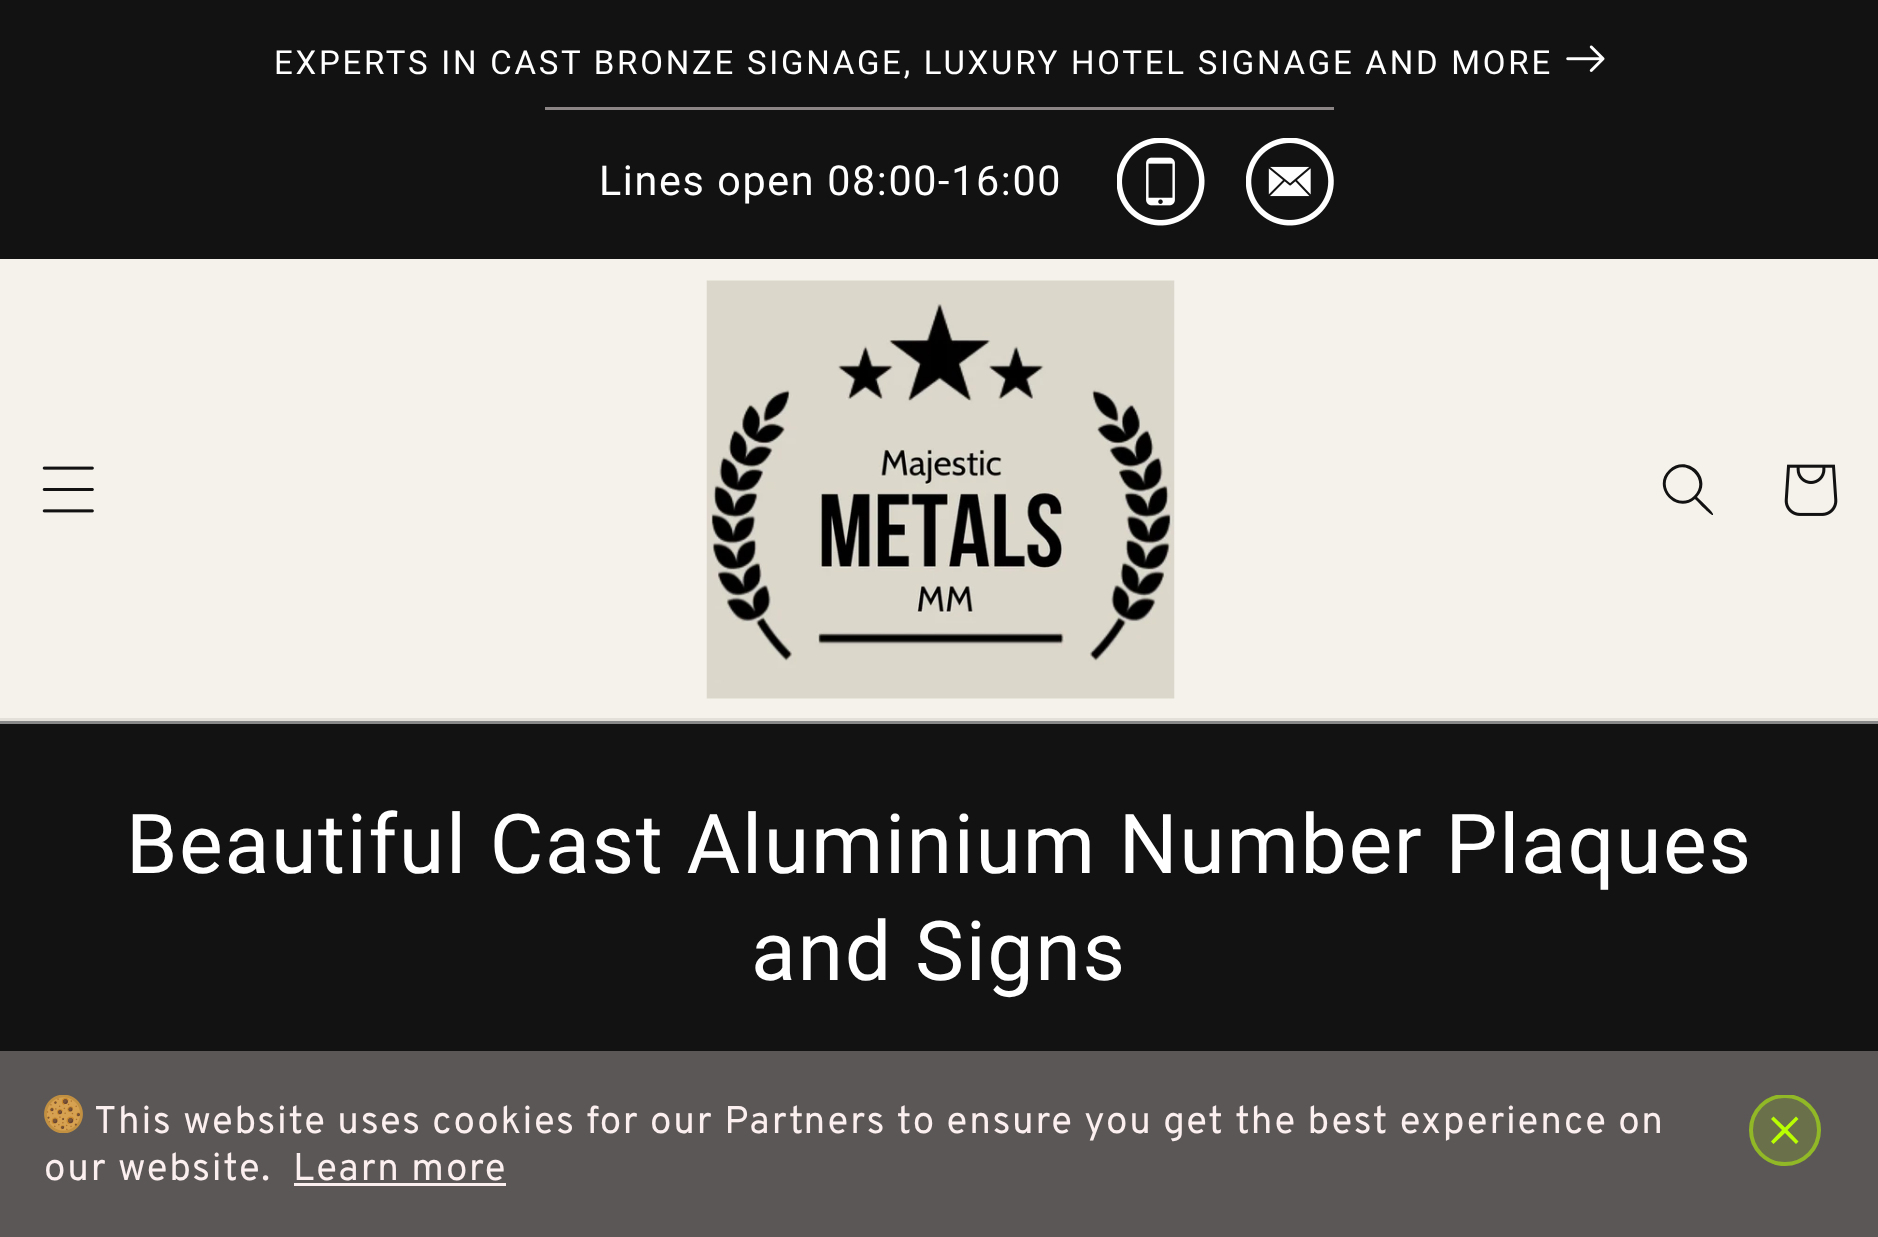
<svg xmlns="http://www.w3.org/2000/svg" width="1878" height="1237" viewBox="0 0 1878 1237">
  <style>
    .t1 { font: 33px Roboto; letter-spacing: 2.75px; fill: #fff; }
    .t2 { font: 41.25px Roboto; letter-spacing: 1.65px; fill: #fff; }
    .t3 { font: 82.5px Roboto; letter-spacing: 1.65px; fill: #fff; }
    .t4 { font: 38.5px Overpass; letter-spacing: 1.65px; fill: #fcefef; }
  </style>
  <defs>
    <clipPath id="clip1"><rect x="1735" y="1095" width="99" height="71"/></clipPath>
  </defs>
  <rect width="100%" height="100%" fill="#121212"/>
  <text x="274" y="74" class="t1">EXPERTS IN CAST BRONZE SIGNAGE, LUXURY HOTEL SIGNAGE AND MORE</text>
  <image x="1566" y="45" width="39" height="27" href="images/1.png"/>
  <rect x="545" y="107" width="789" height="3" fill="#8b8585"/>
  <text x="599" y="195" class="t2">Lines open 08:00-16:00</text>
  <image x="1117" y="138" width="88" height="88" href="images/2.png"/>
  <image x="1246" y="138" width="88" height="88" href="images/3.png"/>
  <rect x="0" y="259" width="1878" height="459" fill="#f5f2eb"/>
  <rect x="0" y="718" width="1878" height="3" fill="#e3e0da"/>
  <image x="42" y="466" width="52" height="47" href="images/4.png"/>
  <image x="706" y="280" width="469" height="419" href="images/5.png"/>
  <path d="M1694 496C1679 511 1655 488 1671 472C1686 457 1710 480 1694 496ZM1695 499C1676 515 1651 487 1669 470C1687 453 1714 478 1697 497C1699 499 1713 512 1713 514V515C1711 516 1697 501 1695 499Z" fill="#121212" fill-rule="evenodd"/>
  <image x="1784" y="464" width="54" height="52" href="images/6.png"/>
  <rect x="0" y="721" width="1878" height="3" fill="#898989"/>
  <text x="126" y="873" class="t3">Beautiful Cast Aluminium Number Plaques</text>
  <text x="751" y="980" class="t3">and Signs</text>
  <rect x="0" y="1051" width="1878" height="186" fill="#5b5757"/>
  <image x="44" y="1095" width="39" height="38" href="images/7.png"/>
  <text x="94" y="1133" class="t4">This website uses cookies for our Partners to ensure you get the best experience on</text>
  <text x="44" y="1180" class="t4">our website.</text>
  <text x="293" y="1180" class="t4">Learn more</text>
  <rect x="294" y="1183" width="212" height="3" fill="#fcefef"/>
  <g clip-path="url(#clip1)">
    <circle cx="1785" cy="1130" r="36" fill="#69704a"/>
    <circle cx="1785" cy="1130" r="34" fill="none" stroke="#b9ff0180" stroke-width="4"/>
  </g>
  <path d="M1798.5 1119L1796 1116.5L1785 1127.5L1773.5 1116.5L1771 1119L1782 1130L1771 1141.5L1773.5 1144L1785 1133L1796 1144L1798.5 1141.5L1787.5 1130Z" fill="#b9ff01"/>
</svg>
